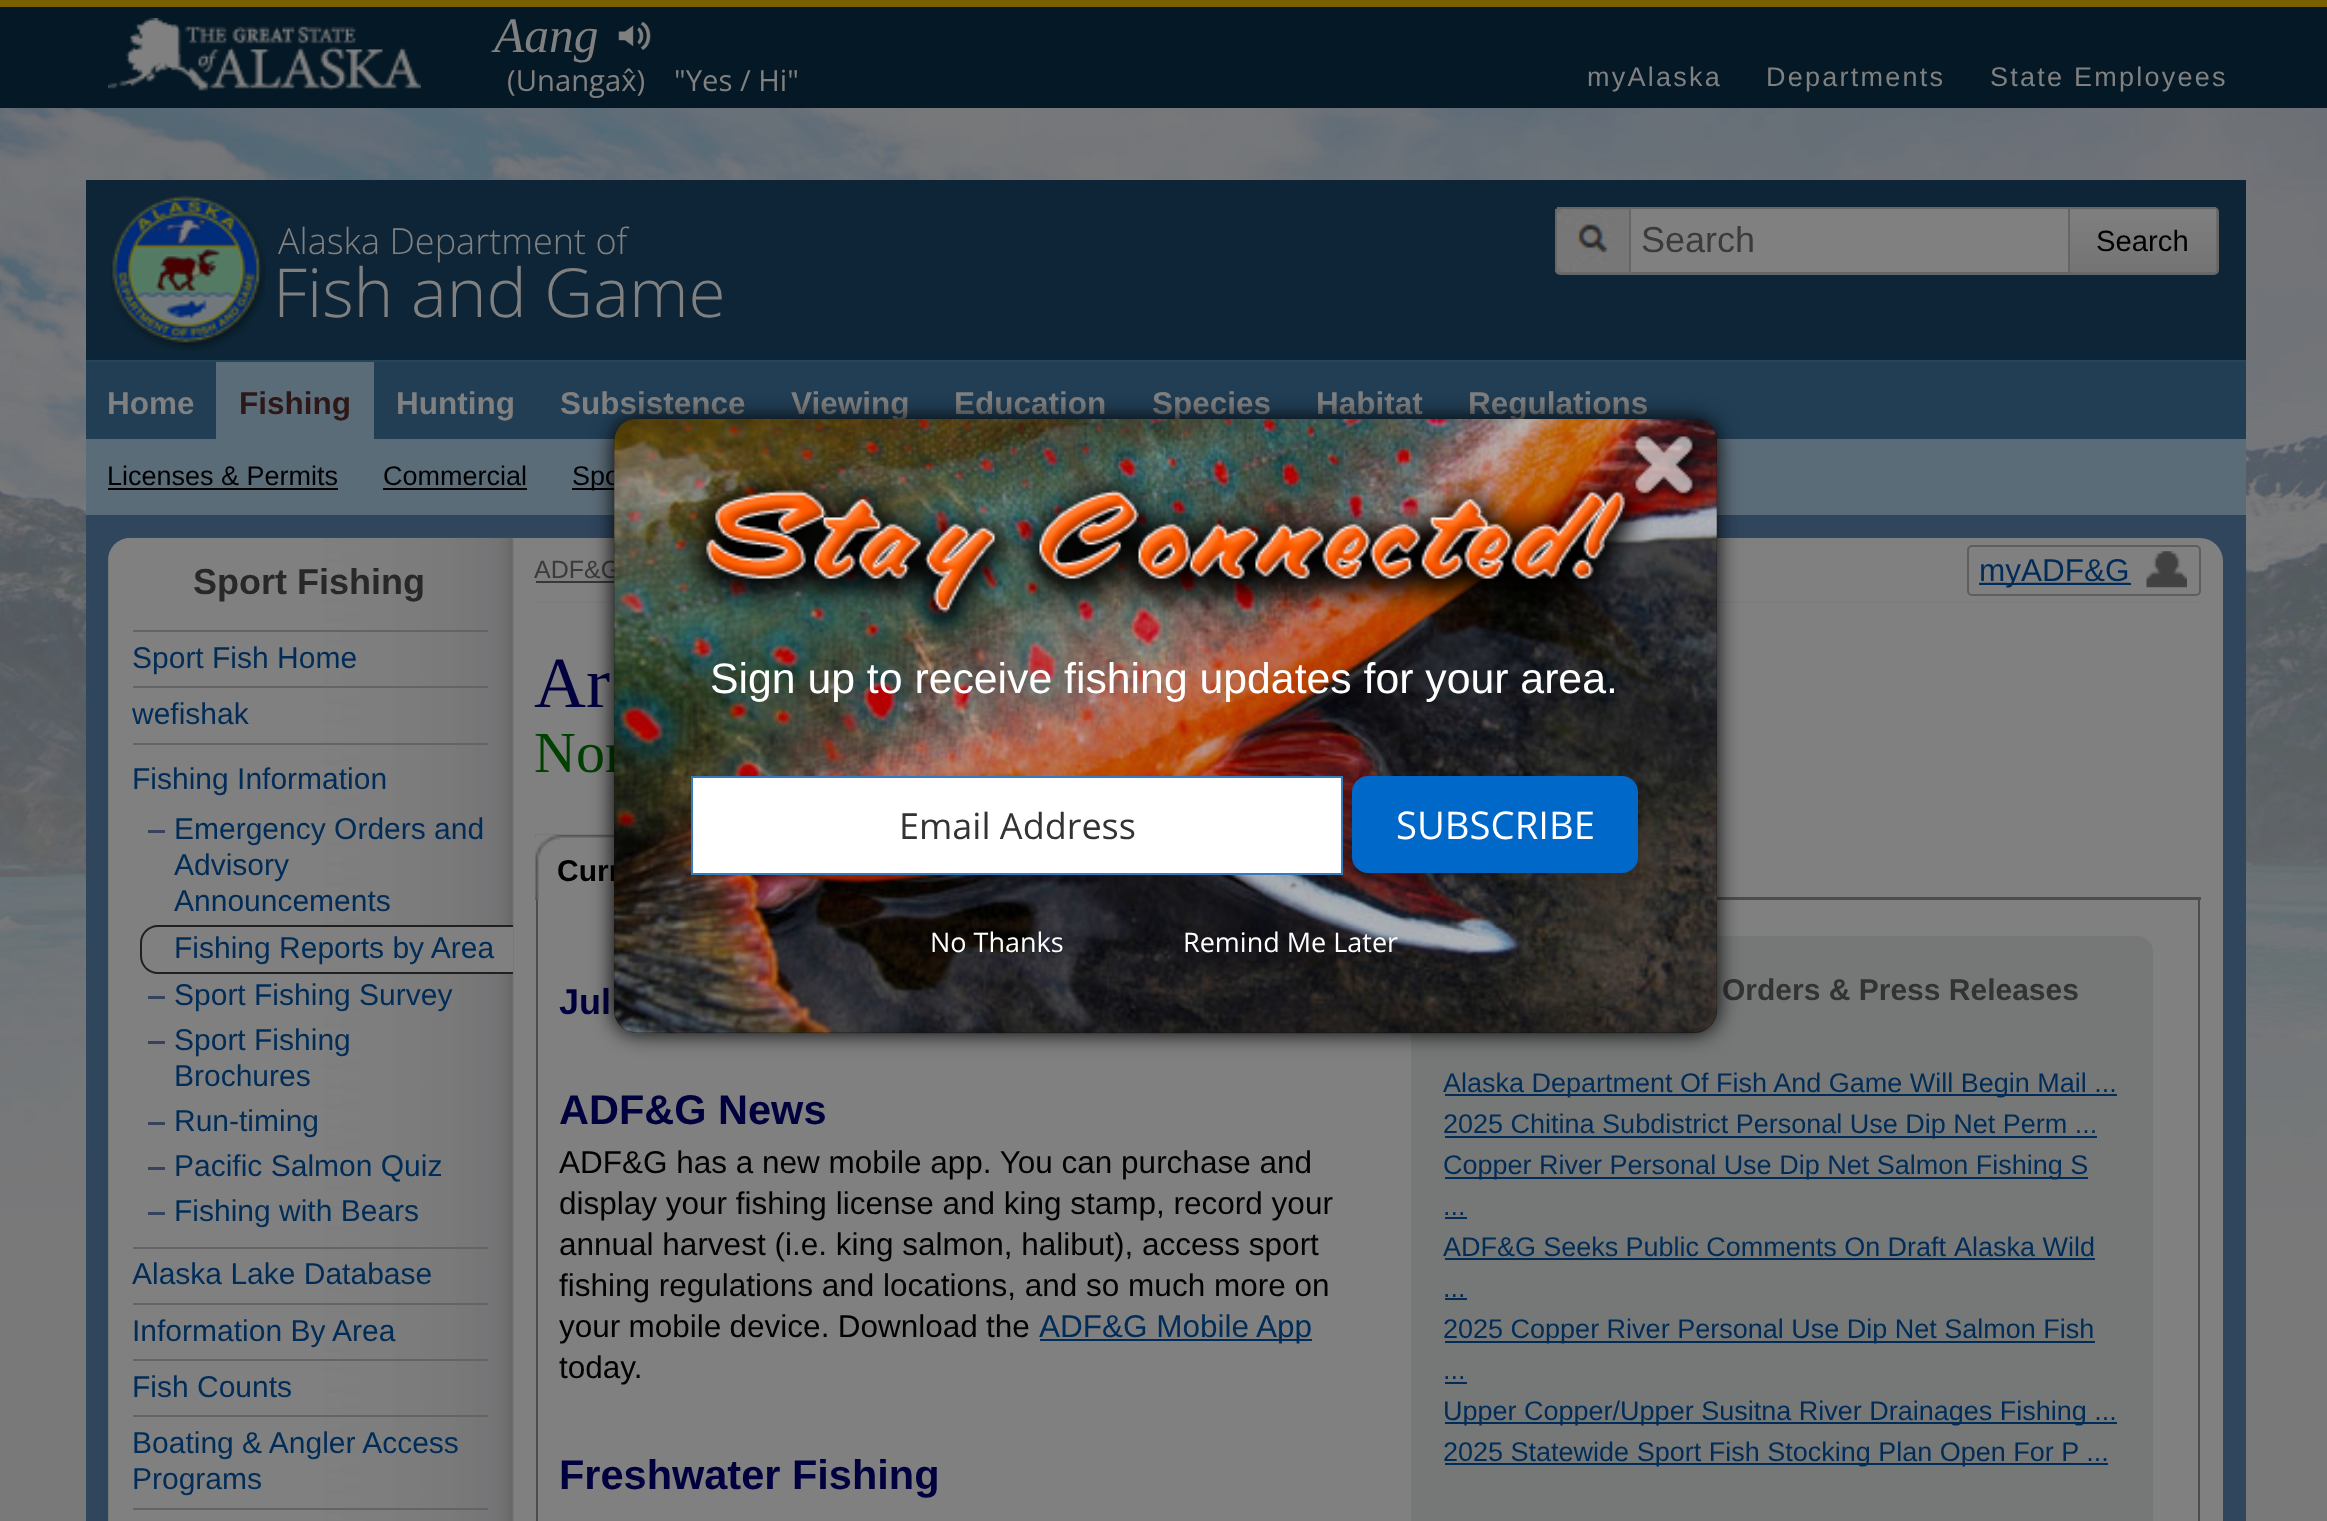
<svg xmlns="http://www.w3.org/2000/svg" width="2327" height="1521" viewBox="0 0 2327 1521">
  <style>
    .t1 { font: italic 49.5px Liberation Serif; fill: #808080; }
    .t2 { font: 29.25px Open Sans; fill: #808080; }
    .t3 { font: 27px Liberation Sans; letter-spacing: 2.25px; fill: #808080; }
    .t4 { font: 300 36px Open Sans; fill: #808080; }
    .t5 { font: 300 67.5px Open Sans; fill: #808080; }
    .t6 { font: 36px Liberation Sans; fill: #3b3b3b; }
    .t7 { font: 29.25px Liberation Sans; fill: #000; }
    .t8 { font: bold 31.5px Liberation Sans; fill: #2d1717; }
    .t9 { font: 27px Liberation Sans; fill: #000; }
    .t10 { font: bold 31.5px Liberation Sans; fill: #808080; }
    .t11 { font: bold 36px Liberation Sans; fill: #282828; }
    .t12 { font: 30px Liberation Sans; fill: #002c57; }
    .t13 { font: 25px Liberation Sans; fill: #3b3b3b; }
    .t14 { font: 31.5px Liberation Sans; fill: #002c57; }
    .t15 { font: 72px Liberation Serif; fill: #00003e; }
    .t16 { font: 58px Liberation Serif; fill: #004000; }
    .t17 { font: bold 30px Liberation Sans; fill: #000; }
    .t18 { font: bold 36px Liberation Sans; fill: #00003e; }
    .t19 { font: bold 41.5px Liberation Sans; fill: #00003e; }
    .t20 { font: 31.5px Liberation Sans; fill: #000; }
    .t21 { font: bold 30px Liberation Sans; fill: #333; }
    .t22 { font: 27px Liberation Sans; fill: #002c57; }
    .t23 { font: 42.75px Liberation Sans; fill: #fff; }
    .t24 { font: 36px Open Sans; fill: #333; }
    .t25 { font: 38.25px Open Sans; fill: #fff; }
    .t26 { font: 27px Open Sans; fill: #fff; }
  </style>
  <rect width="100%" height="100%" fill="#797979"/>
  <image x="0" y="108" width="2327" height="1099" href="images/1.png"/>
  <rect x="0" y="7" width="2327" height="101" fill="#041825"/>
  <rect x="0" y="0" width="2327" height="7" fill="#775f02"/>
  <text x="494" y="52" class="t1">Aang</text>
  <image x="618" y="21" width="33" height="30" href="images/2.png"/>
  <text x="507" y="91" class="t2">(Unangax̂)</text>
  <text x="674" y="91" class="t2">"Yes / Hi"</text>
  <image x="108" y="18" width="313" height="73" href="images/3.png"/>
  <text x="1587" y="86" class="t3">myAlaska</text>
  <text x="1766" y="86" class="t3">Departments</text>
  <text x="1990" y="86" class="t3">State Employees</text>
  <rect x="86" y="180" width="2160" height="180" fill="#0d2536"/>
  <image x="111" y="195" width="155" height="156" href="images/4.png"/>
  <text x="278" y="254" class="t4">Alaska Department of</text>
  <text x="273" y="317" class="t5">Fish and Game</text>
  <rect x="1555" y="207" width="664" height="68" rx="5" fill="#666"/>
  <rect x="1557" y="207" width="659" height="1" fill="#666"/>
  <rect x="1555" y="209" width="1" height="63" fill="#666"/>
  <image x="1557" y="209" width="75" height="64" href="images/5.png"/>
  <rect x="1629" y="209" width="2" height="63" fill="#666"/>
  <rect x="1631" y="209" width="437" height="63" fill="#808080"/>
  <text x="1641" y="252" class="t6">Search</text>
  <image x="2070" y="209" width="147" height="64" href="images/6.png"/>
  <text x="2096" y="251" class="t7">Search</text>
  <rect x="86" y="362" width="2160" height="77" fill="#213e55"/>
  <rect x="86" y="360" width="2160" height="2" fill="#25455a"/>
  <rect x="216" y="362" width="158" height="77" fill="#5b6c79"/>
  <text x="239" y="414" class="t8">Fishing</text>
  <rect x="86" y="439" width="2160" height="76" fill="#5b6c79"/>
  <text x="107" y="485" class="t9">Licenses &amp; Permits</text>
  <rect x="108" y="488" width="230" height="2" fill="#000"/>
  <text x="383" y="485" class="t9">Commercial</text>
  <rect x="383" y="488" width="144" height="2" fill="#000"/>
  <rect x="572" y="488" width="42" height="2" fill="#000"/>
  <text x="572" y="485" class="t9">Spo</text>
  <text x="107" y="414" class="t10">Home</text>
  <text x="396" y="414" class="t10">Hunting</text>
  <text x="560" y="414" class="t10">Subsistence</text>
  <text x="791" y="414" class="t10">Viewing</text>
  <text x="954" y="414" class="t10">Education</text>
  <text x="1152" y="414" class="t10">Species</text>
  <text x="1316" y="414" class="t10">Habitat</text>
  <text x="1468" y="414" class="t10">Regulations</text>
  <rect x="86" y="515" width="2160" height="1006" fill="#30465d"/>
  <rect x="108" y="538" width="2115" height="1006" rx="23" fill="#808080"/>
  <image x="108" y="537" width="407" height="984" href="images/7.png"/>
  <text x="193" y="594" class="t11">Sport Fishing</text>
  <rect x="133" y="630" width="355" height="2" fill="#646465"/>
  <text x="132" y="668" class="t12">Sport Fish Home</text>
  <rect x="133" y="686" width="355" height="2" fill="#646465"/>
  <text x="132" y="724" class="t12">wefishak</text>
  <rect x="133" y="743" width="355" height="2" fill="#646465"/>
  <text x="132" y="789" class="t12">Fishing Information</text>
  <rect x="148" y="830" width="17" height="3" fill="#37425c"/>
  <text x="174" y="839" class="t12">Emergency Orders and</text>
  <text x="174" y="875" class="t12">Advisory</text>
  <text x="174" y="911" class="t12">Announcements</text>
  <path d="M158 927H513V972H158C149 972 142 965 142 956V943C142 934 149 927 158 927Z" fill="#808080"/>
  <path d="M158 925H513V974H158C148 974 140 966 140 956V943C140 933 148 925 158 925ZM158 927H513V972H158C149 972 142 965 142 956V943C142 934 149 927 158 927Z" fill="#202020" fill-rule="evenodd"/>
  <text x="174" y="958" class="t12">Fishing Reports by Area</text>
  <rect x="148" y="996" width="17" height="3" fill="#37425c"/>
  <text x="174" y="1005" class="t12">Sport Fishing Survey</text>
  <rect x="148" y="1041" width="17" height="3" fill="#37425c"/>
  <text x="174" y="1050" class="t12">Sport Fishing</text>
  <text x="174" y="1086" class="t12">Brochures</text>
  <rect x="148" y="1122" width="17" height="3" fill="#37425c"/>
  <text x="174" y="1131" class="t12">Run-timing</text>
  <rect x="148" y="1167" width="17" height="3" fill="#37425c"/>
  <text x="174" y="1176" class="t12">Pacific Salmon Quiz</text>
  <rect x="148" y="1212" width="17" height="3" fill="#37425c"/>
  <text x="174" y="1221" class="t12">Fishing with Bears</text>
  <rect x="133" y="1247" width="355" height="2" fill="#646465"/>
  <text x="132" y="1284" class="t12">Alaska Lake Database</text>
  <rect x="133" y="1303" width="355" height="2" fill="#646465"/>
  <text x="132" y="1341" class="t12">Information By Area</text>
  <rect x="133" y="1359" width="355" height="2" fill="#646465"/>
  <text x="132" y="1397" class="t12">Fish Counts</text>
  <rect x="133" y="1415" width="355" height="2" fill="#646465"/>
  <text x="132" y="1453" class="t12">Boating &amp; Angler Access</text>
  <text x="132" y="1489" class="t12">Programs</text>
  <rect x="133" y="1508" width="355" height="2" fill="#646465"/>
  <rect x="536" y="601" width="1665" height="2" fill="#7a7c7d"/>
  <text x="534" y="578" class="t13">ADF&amp;G</text>
  <rect x="536" y="581" width="78" height="2" fill="#373737"/>
  <rect x="1968" y="546" width="232" height="49" rx="4" fill="none" stroke="#5e5e5e" stroke-width="2"/>
  <image x="1979" y="551" width="208" height="37" href="images/8.png"/>
  <rect x="2007" y="583" width="124" height="2" fill="#002c57"/>
  <text x="1979" y="581" class="t14">myADF&amp;G</text>
  <text x="534" y="707" class="t15">Ar</text>
  <text x="534" y="772" class="t16">Nor</text>
  <rect x="535" y="897" width="1666" height="3" fill="#4d4d4d"/>
  <image x="535" y="834" width="79" height="66" href="images/9.png"/>
  <image x="535" y="834" width="26" height="66" href="images/10.png"/>
  <text x="557" y="881" class="t17">Curr</text>
  <rect x="2198" y="900" width="2" height="621" fill="#4d4d4d"/>
  <rect x="536" y="900" width="2" height="621" fill="#4d4d4d"/>
  <text x="559" y="1014" class="t18">Jul</text>
  <text x="559" y="1124" class="t19">ADF&amp;G News</text>
  <text x="559" y="1173" class="t20">ADF&amp;G has a new mobile app. You can purchase and</text>
  <text x="559" y="1214" class="t20">display your fishing license and king stamp, record your</text>
  <text x="559" y="1255" class="t20">annual harvest (i.e. king salmon, halibut), access sport</text>
  <text x="559" y="1296" class="t20">fishing regulations and locations, and so much more on</text>
  <text x="559" y="1337" word-spacing="-0.5" class="t20">your mobile device. Download the</text>
  <rect x="1040" y="1339" width="272" height="2" fill="#002c57"/>
  <text x="1039" y="1337" class="t14">ADF&amp;G Mobile App</text>
  <text x="559" y="1378" class="t20">today.</text>
  <text x="559" y="1489" class="t19">Freshwater Fishing</text>
  <rect x="1411" y="936" width="742" height="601" rx="16" fill="#767878"/>
  <text x="1722" y="1000" class="t21">Orders &amp; Press Releases</text>
  <rect x="1445" y="1094" width="672" height="2" fill="#002c57"/>
  <text x="1443" y="1092" class="t22">Alaska Department Of Fish And Game Will Begin Mail ...</text>
  <rect x="1445" y="1136" width="652" height="2" fill="#002c57"/>
  <text x="1443" y="1133" class="t22">2025 Chitina Subdistrict Personal Use Dip Net Perm ...</text>
  <rect x="1445" y="1177" width="643" height="2" fill="#002c57"/>
  <text x="1443" y="1174" class="t22">Copper River Personal Use Dip Net Salmon Fishing S</text>
  <text x="1443" y="1215" class="t22">...</text>
  <rect x="1445" y="1217" width="22" height="2" fill="#002c57"/>
  <text x="1443" y="1256" word-spacing="-0.25" class="t22">ADF&amp;G Seeks Public Comments On Draft</text>
  <rect x="1445" y="1258" width="650" height="2" fill="#002c57"/>
  <text x="1954" y="1256" class="t22">Alaska Wild</text>
  <text x="1443" y="1297" class="t22">...</text>
  <rect x="1445" y="1298" width="22" height="2" fill="#002c57"/>
  <rect x="1445" y="1341" width="650" height="2" fill="#002c57"/>
  <text x="1443" y="1338" class="t22">2025 Copper River Personal Use Dip Net Salmon Fish</text>
  <text x="1443" y="1379" class="t22">...</text>
  <rect x="1445" y="1382" width="22" height="2" fill="#002c57"/>
  <rect x="1445" y="1422" width="672" height="2" fill="#002c57"/>
  <text x="1443" y="1420" class="t22">Upper Copper/Upper Susitna River Drainages Fishing ...</text>
  <rect x="1445" y="1463" width="663" height="2" fill="#002c57"/>
  <text x="1443" y="1461" class="t22">2025 Statewide Sport Fish Stocking Plan Open For P ...</text>
  <rect x="614" y="419" width="1103" height="614" rx="23" fill="#000" filter="blur(11px)"/>
  <rect x="614" y="419" width="1103" height="614" rx="23" fill="#141416"/>
  <image x="614" y="419" width="1103" height="615" href="images/11.png"/>
  <image x="679" y="470" width="974" height="173" href="images/12.png"/>
  <image x="1634" y="436" width="64" height="66" href="images/13.png"/>
  <text x="710" y="693" class="t23">Sign up to receive fishing updates for your area.</text>
  <rect x="692" y="777" width="650" height="97" fill="#fff" stroke="#347cbe" stroke-width="2"/>
  <text x="899" y="839" class="t24">Email Address</text>
  <rect x="1353" y="777" width="284" height="95" rx="15" fill="#0068c9" stroke="#0068c9" stroke-width="2"/>
  <text x="1396" y="839" class="t25">SUBSCRIBE</text>
  <text x="930" y="952" class="t26">No Thanks</text>
  <text x="1183" y="952" class="t26">Remind Me Later</text>
</svg>
